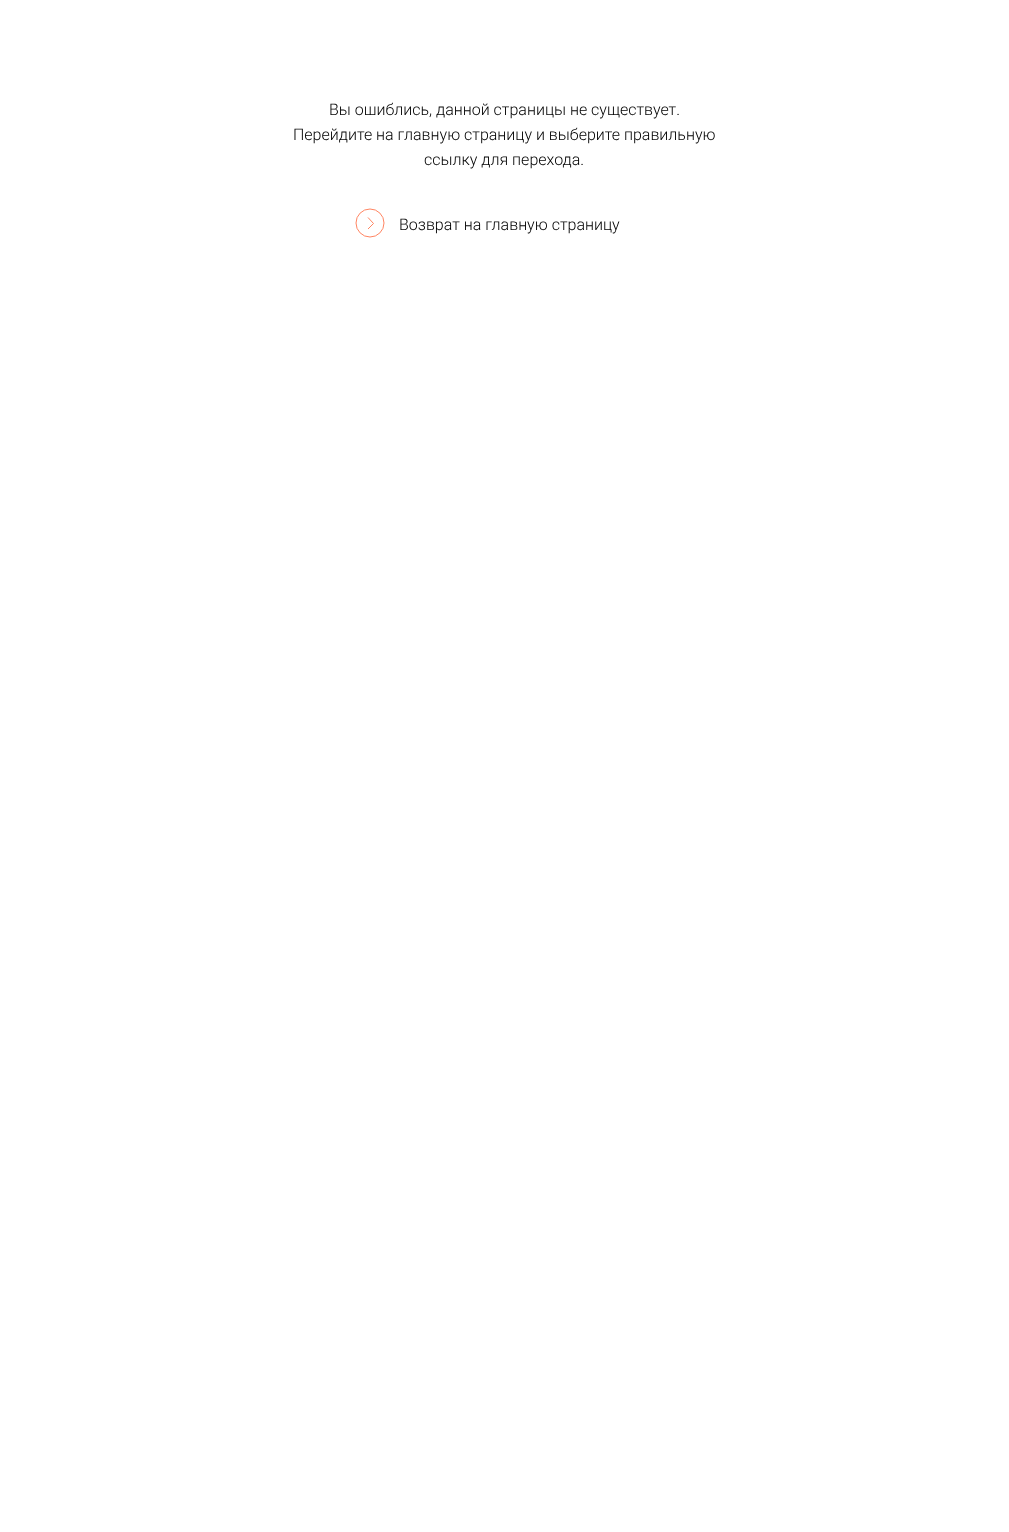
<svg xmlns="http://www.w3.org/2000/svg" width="1009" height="1532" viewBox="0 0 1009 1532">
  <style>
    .t1 { font: 300 16px Roboto; fill: #000; }
  </style>
  <rect width="100%" height="100%" fill="#fff"/>
  <text x="329" y="115" class="t1">Вы ошиблись, данной страницы не существует.</text>
  <text x="293" y="140" class="t1">Перейдите на главную страницу и выберите правильную</text>
  <text x="424" y="165" class="t1">ссылку для перехода.</text>
  <circle cx="370" cy="223" r="14" fill="none" stroke="#ff8562"/>
  <path d="M368 229L373.5 223.5L368 217.5" fill="none" stroke="#ff8562"/>
  <text x="399" y="230" class="t1">Возврат на главную страницу</text>
</svg>
